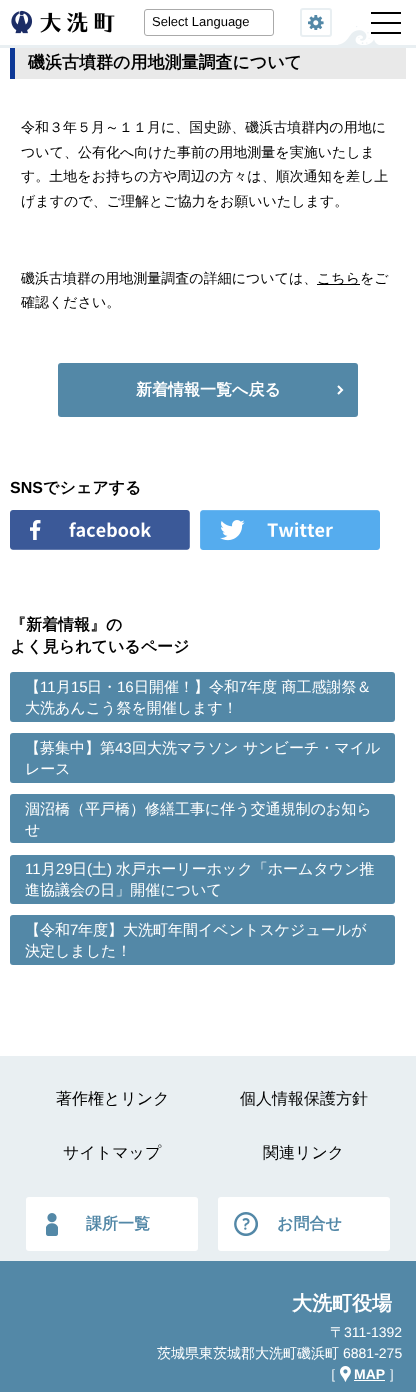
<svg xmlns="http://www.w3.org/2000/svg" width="416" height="1392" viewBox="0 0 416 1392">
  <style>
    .t1 { font: 13px Liberation Sans; fill: #000; }
    .t2 { font: bold 17px WenQuanYi Zen Hei; fill: #000; }
    .t3 { font: 500 14px WenQuanYi Zen Hei; fill: #000; }
    .t4 { font: bold 16px WenQuanYi Zen Hei; fill: #fff; }
    .t5 { font: bold 16px Liberation Sans; fill: #000; }
    .t6 { font: bold 16px WenQuanYi Zen Hei; fill: #000; }
    .t7 { font: 500 15px WenQuanYi Zen Hei; fill: #fff; }
    .t8 { font: 15px Liberation Sans; fill: #fff; }
    .t9 { font: 500 16px WenQuanYi Zen Hei; fill: #000; }
    .t10 { font: bold 16px WenQuanYi Zen Hei; fill: #5388a7; }
    .t11 { font: bold 20px WenQuanYi Zen Hei; fill: #fff; }
    .t12 { font: 500 14px WenQuanYi Zen Hei; fill: #fff; }
    .t13 { font: 14px Liberation Sans; fill: #fff; }
    .t14 { font: bold 14px Liberation Sans; fill: #fff; }
  </style>
  <rect width="100%" height="100%" fill="#fff"/>
  <rect x="10" y="47" width="5" height="32" fill="#0d3896"/>
  <rect x="0" y="45" width="416" height="3" fill="#e9eff2"/>
  <image x="11" y="10" width="104" height="24" href="images/1.png"/>
  <rect x="144.5" y="9.5" width="129" height="26" rx="2.5" fill="none" stroke="#aaa"/>
  <text x="152" y="26" class="t1">Select Language</text>
  <image x="308" y="15" width="16" height="15" href="images/2.png"/>
  <rect x="301" y="9" width="30" height="27" rx="2" fill="none" stroke="#e9eff2" stroke-width="2"/>
  <rect x="371" y="12" width="30" height="2" fill="#000"/>
  <rect x="371" y="22" width="30" height="2" fill="#000"/>
  <image x="338" y="26" width="41" height="19" href="images/3.png"/>
  <rect x="371" y="32" width="30" height="2" fill="#000"/>
  <rect x="15" y="48" width="391" height="31" fill="#e9e9e9"/>
  <text x="28" y="68" class="t2">磯浜古墳群の用地測量調査について</text>
  <text x="21" y="132" class="t3">令和３年５月～１１月に、国史跡、磯浜古墳群内の用地に</text>
  <text x="21" y="157" class="t3">ついて、公有化へ向けた事前の用地測量を実施いたしま</text>
  <text x="21" y="181" class="t3">す。土地をお持ちの方や周辺の方々は、順次通知を差し上</text>
  <text x="21" y="206" class="t3">げますので、ご理解とご協力をお願いいたします。</text>
  <text x="21" y="283" class="t3">磯浜古墳群の用地測量調査の詳細については、</text>
  <rect x="317" y="284" width="43" height="1" fill="#000"/>
  <text x="317" y="283" class="t3">こちらをご</text>
  <text x="21" y="307" class="t3">確認ください。</text>
  <rect x="58" y="363" width="300" height="54" rx="3" fill="#5388a7"/>
  <text x="136" y="395" class="t4">新着情報一覧へ戻る</text>
  <path d="M338 386L342 390L338 394" fill="none" stroke="#fff" stroke-width="2.1"/>
  <text x="10" y="493" class="t5">SNS</text>
  <text x="43" y="493" class="t6">でシェアする</text>
  <image x="10" y="510" width="180" height="40" href="images/4.png"/>
  <image x="200" y="510" width="180" height="40" href="images/5.png"/>
  <text x="10" y="630" class="t6">『新着情報』の</text>
  <text x="10" y="652" class="t6">よく見られているページ</text>
  <rect x="10" y="672" width="385" height="50" rx="3" fill="#5388a7"/>
  <text x="25" y="692" class="t7">【</text>
  <text x="40" y="692" class="t8">11</text>
  <text x="56" y="692" class="t7">月</text>
  <text x="71" y="692" class="t8">15</text>
  <text x="87" y="692" class="t7">日・</text>
  <text x="117" y="692" class="t8">16</text>
  <text x="134" y="692" class="t7">日開催！】令和</text>
  <text x="239" y="692" class="t8">7</text>
  <text x="247" y="692" class="t7">年度 商工感謝祭＆</text>
  <text x="25" y="713" class="t7">大洗あんこう祭を開催します！</text>
  <rect x="10" y="733" width="385" height="50" rx="3" fill="#5388a7"/>
  <text x="25" y="753" class="t7">【募集中】第</text>
  <text x="115" y="753" class="t8">43</text>
  <text x="132" y="753" class="t7">回大洗マラソン サンビーチ・マイル</text>
  <text x="25" y="774" class="t7">レース</text>
  <rect x="10" y="794" width="385" height="49" rx="3" fill="#5388a7"/>
  <text x="25" y="814" class="t7">涸沼橋（平戸橋）修繕工事に伴う交通規制のお知ら</text>
  <text x="25" y="835" class="t7">せ</text>
  <rect x="10" y="855" width="385" height="49" rx="3" fill="#5388a7"/>
  <text x="25" y="874" class="t8">11</text>
  <text x="41" y="874" class="t7">月</text>
  <text x="56" y="874" class="t8">29</text>
  <text x="72" y="874" class="t7">日</text>
  <text x="87" y="874" class="t8">(</text>
  <text x="92" y="874" class="t7">土</text>
  <text x="107" y="874" class="t8">)</text>
  <text x="116" y="874" class="t7">水戸ホーリーホック「ホームタウン推</text>
  <text x="25" y="895" class="t7">進協議会の日」開催について</text>
  <rect x="10" y="915" width="385" height="50" rx="3" fill="#5388a7"/>
  <text x="25" y="935" class="t7">【令和</text>
  <text x="70" y="935" class="t8">7</text>
  <text x="78" y="935" class="t7">年度】大洗町年間イベントスケジュールが</text>
  <text x="25" y="956" class="t7">決定しました！</text>
  <rect x="0" y="1261" width="416" height="131" fill="#5388a7"/>
  <rect x="0" y="1056" width="416" height="205" fill="#e9eff2"/>
  <text x="56" y="1104" class="t9">著作権とリンク</text>
  <text x="240" y="1104" class="t9">個人情報保護方針</text>
  <text x="63" y="1158" class="t9">サイトマップ</text>
  <text x="263" y="1158" class="t9">関連リンク</text>
  <rect x="26" y="1197" width="172" height="54" rx="3" fill="#fff"/>
  <image x="46" y="1213" width="12" height="23" href="images/6.png"/>
  <text x="86" y="1229" class="t10">課所一覧</text>
  <rect x="218" y="1197" width="172" height="54" rx="3" fill="#fff"/>
  <image x="234" y="1212" width="24" height="24" href="images/7.png"/>
  <text x="277" y="1229" class="t10">お問合せ</text>
  <text x="292" y="1310" class="t11">大洗町役場</text>
  <text x="330" y="1337" class="t12">〒</text>
  <text x="344" y="1337" class="t13">311-1392</text>
  <text x="157" y="1358" class="t12">茨城県東茨城郡大洗町磯浜町</text>
  <text x="343" y="1358" class="t13">6881-275</text>
  <text x="323" y="1379" class="t12">［</text>
  <image x="340" y="1366" width="11" height="16" href="images/8.png"/>
  <text x="354" y="1379" class="t14">MAP</text>
  <rect x="354" y="1380" width="31" height="1" fill="#fff"/>
  <text x="388" y="1379" class="t12">］</text>
</svg>
